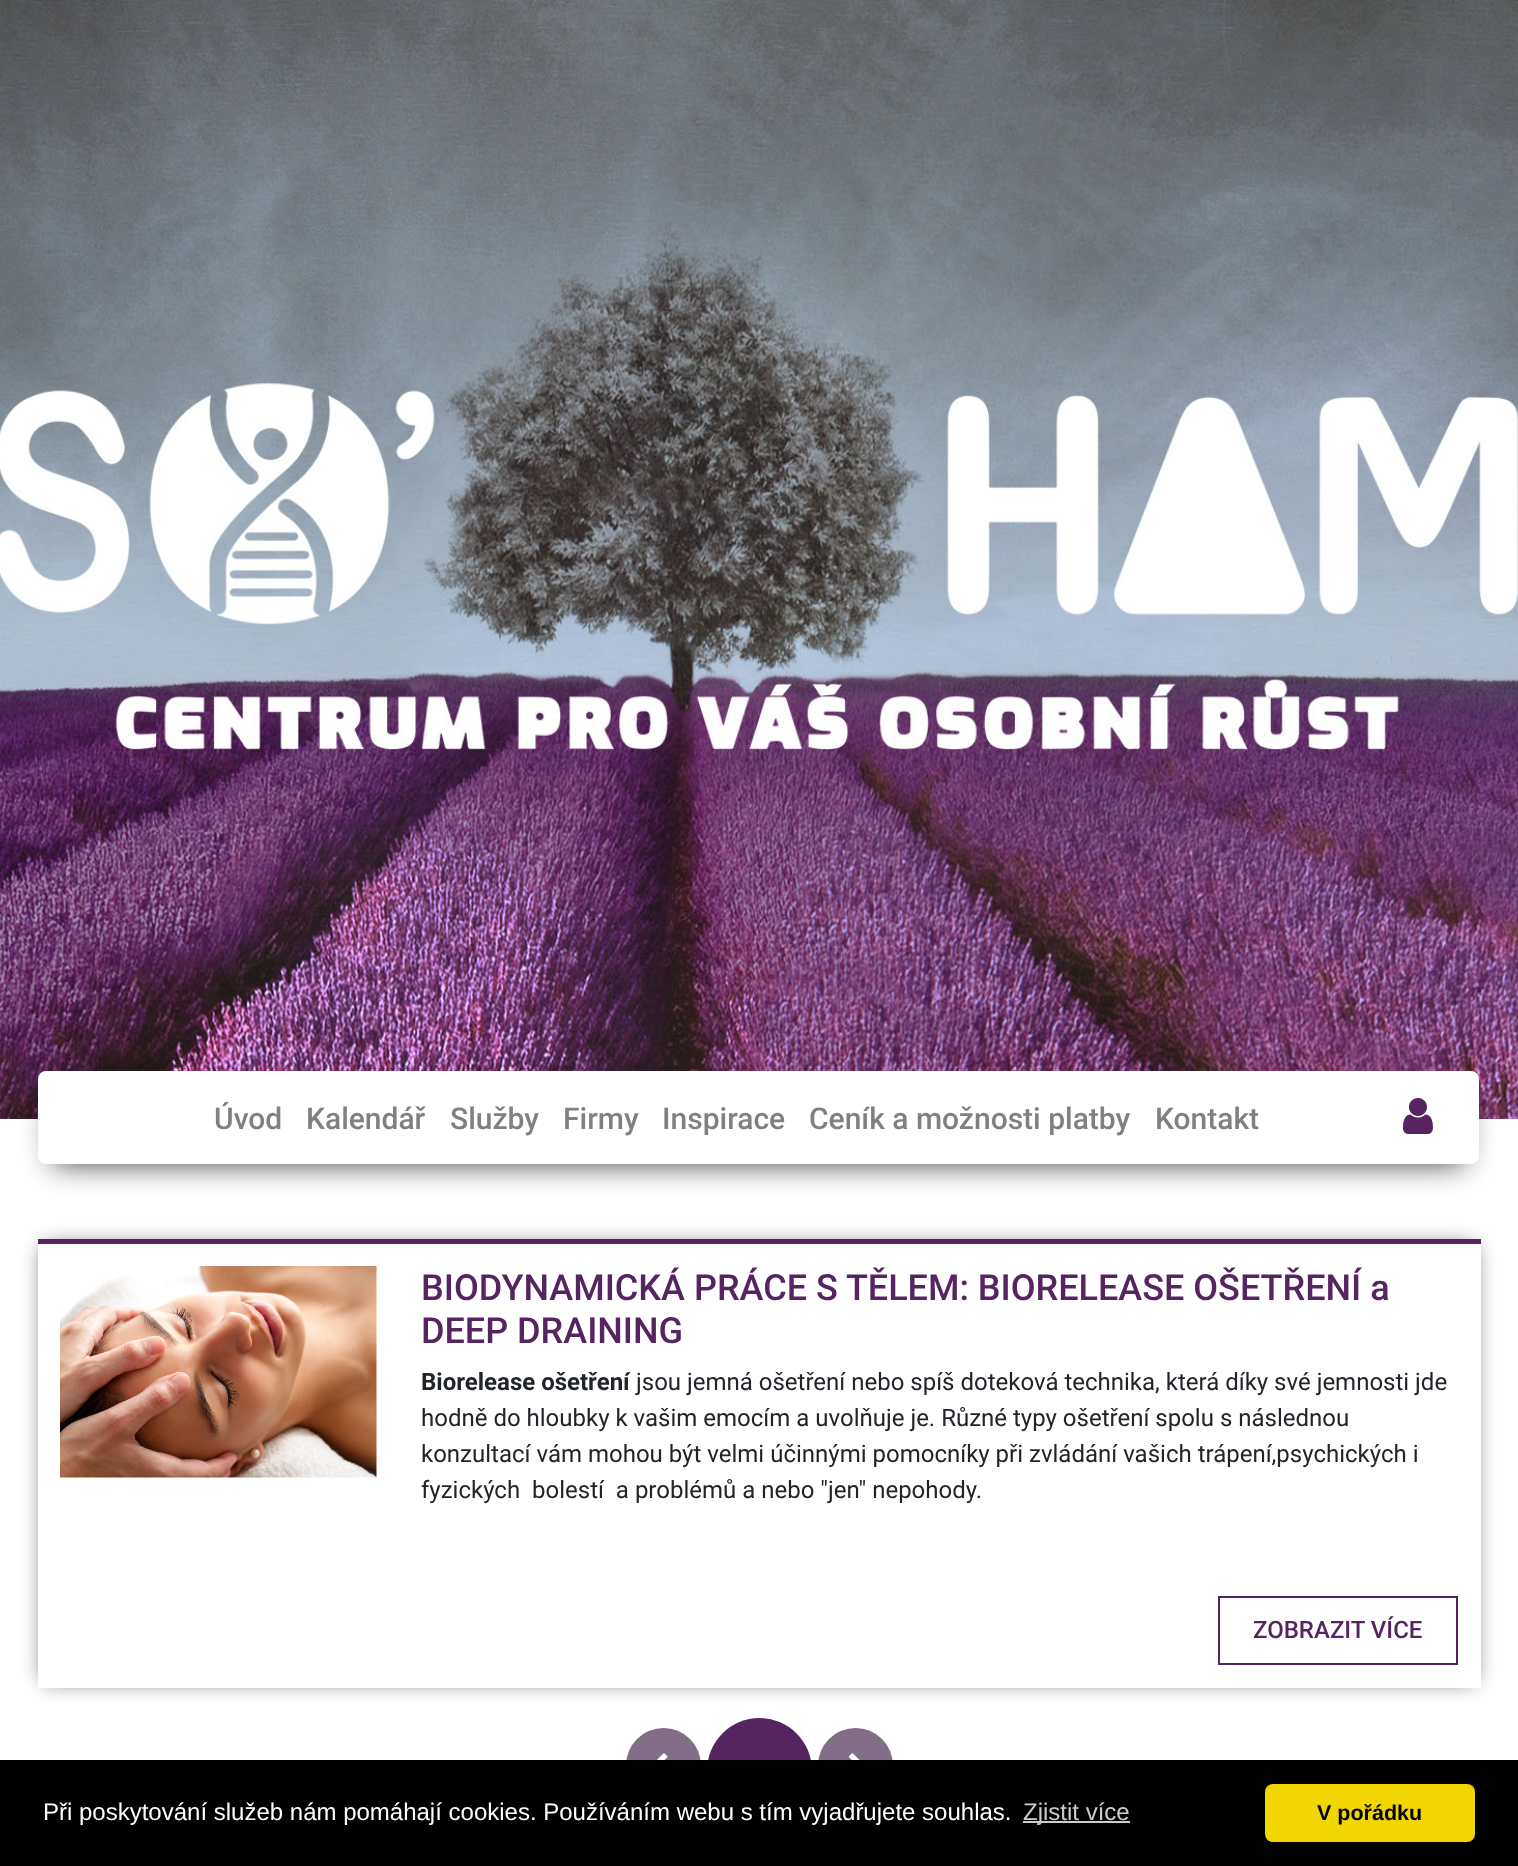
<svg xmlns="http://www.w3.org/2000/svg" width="1518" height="1866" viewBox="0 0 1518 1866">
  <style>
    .t1 { font: 500 30px Roboto; fill: #808080; }
    .t2 { font: 500 36px Roboto; fill: #562461; }
    .t3 { font: bold 24px Roboto; fill: #212529; }
    .t4 { font: 24px Roboto; fill: #212529; }
    .t5 { font: 500 24px Roboto; fill: #562461; }
    .t6 { font: 24px Liberation Sans; fill: #fff; }
    .t7 { font: 24px Liberation Sans; fill: #ccc; }
    .t8 { font: bold 21.5px Liberation Sans; fill: #000; }
  </style>
  <defs>
    <clipPath id="clip1"><path d="M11 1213H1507V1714H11ZM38 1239H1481V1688H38Z" clip-rule="evenodd"/></clipPath>
  </defs>
  <rect width="100%" height="100%" fill="#fff"/>
  <image x="0" y="0" width="1518" height="1119" href="images/1.png"/>
  <rect x="53" y="1101" width="1411" height="63" fill="#000000bf" filter="blur(15px)"/>
  <rect x="38" y="1071" width="1441" height="93" rx="8" fill="#fff"/>
  <text x="214" y="1129" class="t1">Úvod</text>
  <text x="306" y="1129" class="t1">Kalendář</text>
  <text x="450" y="1129" class="t1">Služby</text>
  <text x="563" y="1129" class="t1">Firmy</text>
  <text x="662" y="1129" class="t1">Inspirace</text>
  <text x="809" y="1129" class="t1">Ceník a možnosti platby</text>
  <text x="1155" y="1129" class="t1">Kontakt</text>
  <image x="1402" y="1098" width="31" height="36" href="images/2.png"/>
  <g clip-path="url(#clip1)">
    <rect x="45" y="1247" width="1428" height="433" fill="#000000bf" filter="blur(11px)"/>
  </g>
  <rect x="38" y="1239" width="1443" height="5" fill="#562461"/>
  <image x="60" y="1266" width="317" height="212" href="images/3.png"/>
  <text x="421" y="1300" class="t2">BIODYNAMICKÁ PRÁCE S TĚLEM: BIORELEASE OŠETŘENÍ a</text>
  <text x="421" y="1343" class="t2">DEEP DRAINING</text>
  <text x="421" y="1390" class="t3">Biorelease ošetření</text>
  <text x="636" y="1390" class="t4">jsou jemná ošetření nebo spíš doteková technika, která díky své jemnosti jde</text>
  <text x="421" y="1426" class="t4">hodně do hloubky k vašim emocím a uvolňuje je. Různé typy ošetření spolu s následnou</text>
  <text x="421" y="1462" class="t4">konzultací vám mohou být velmi účinnými pomocníky při zvládání vašich trápení,psychických i</text>
  <text x="421" y="1498" class="t4" xml:space="preserve">fyzických  bolestí  a problémů a nebo "jen" nepohody.</text>
  <rect x="1219" y="1597" width="238" height="67" fill="none" stroke="#562461" stroke-width="2"/>
  <text x="1253" y="1638" class="t5">ZOBRAZIT VÍCE</text>
  <circle cx="663.5" cy="1765.5" r="37.5" fill="#826e87"/>
  <image x="657" y="1753" width="11" height="7" href="images/4.png"/>
  <circle cx="759.5" cy="1770.5" r="52.5" fill="#562461"/>
  <circle cx="855.5" cy="1765.5" r="37.5" fill="#826e87"/>
  <image x="848" y="1753" width="12" height="7" href="images/5.png"/>
  <rect x="0" y="1760" width="1518" height="106" fill="#000"/>
  <text x="43" y="1820" class="t6">Při poskytování služeb nám pomáhají cookies. Používáním webu s tím vyjadřujete souhlas.</text>
  <rect x="1023" y="1821" width="107" height="2" fill="#ccc"/>
  <text x="1023" y="1820" class="t7">Zjistit více</text>
  <rect x="1265" y="1784" width="210" height="58" rx="8" fill="#f1d600"/>
  <text x="1317" y="1820" class="t8">V pořádku</text>
</svg>
